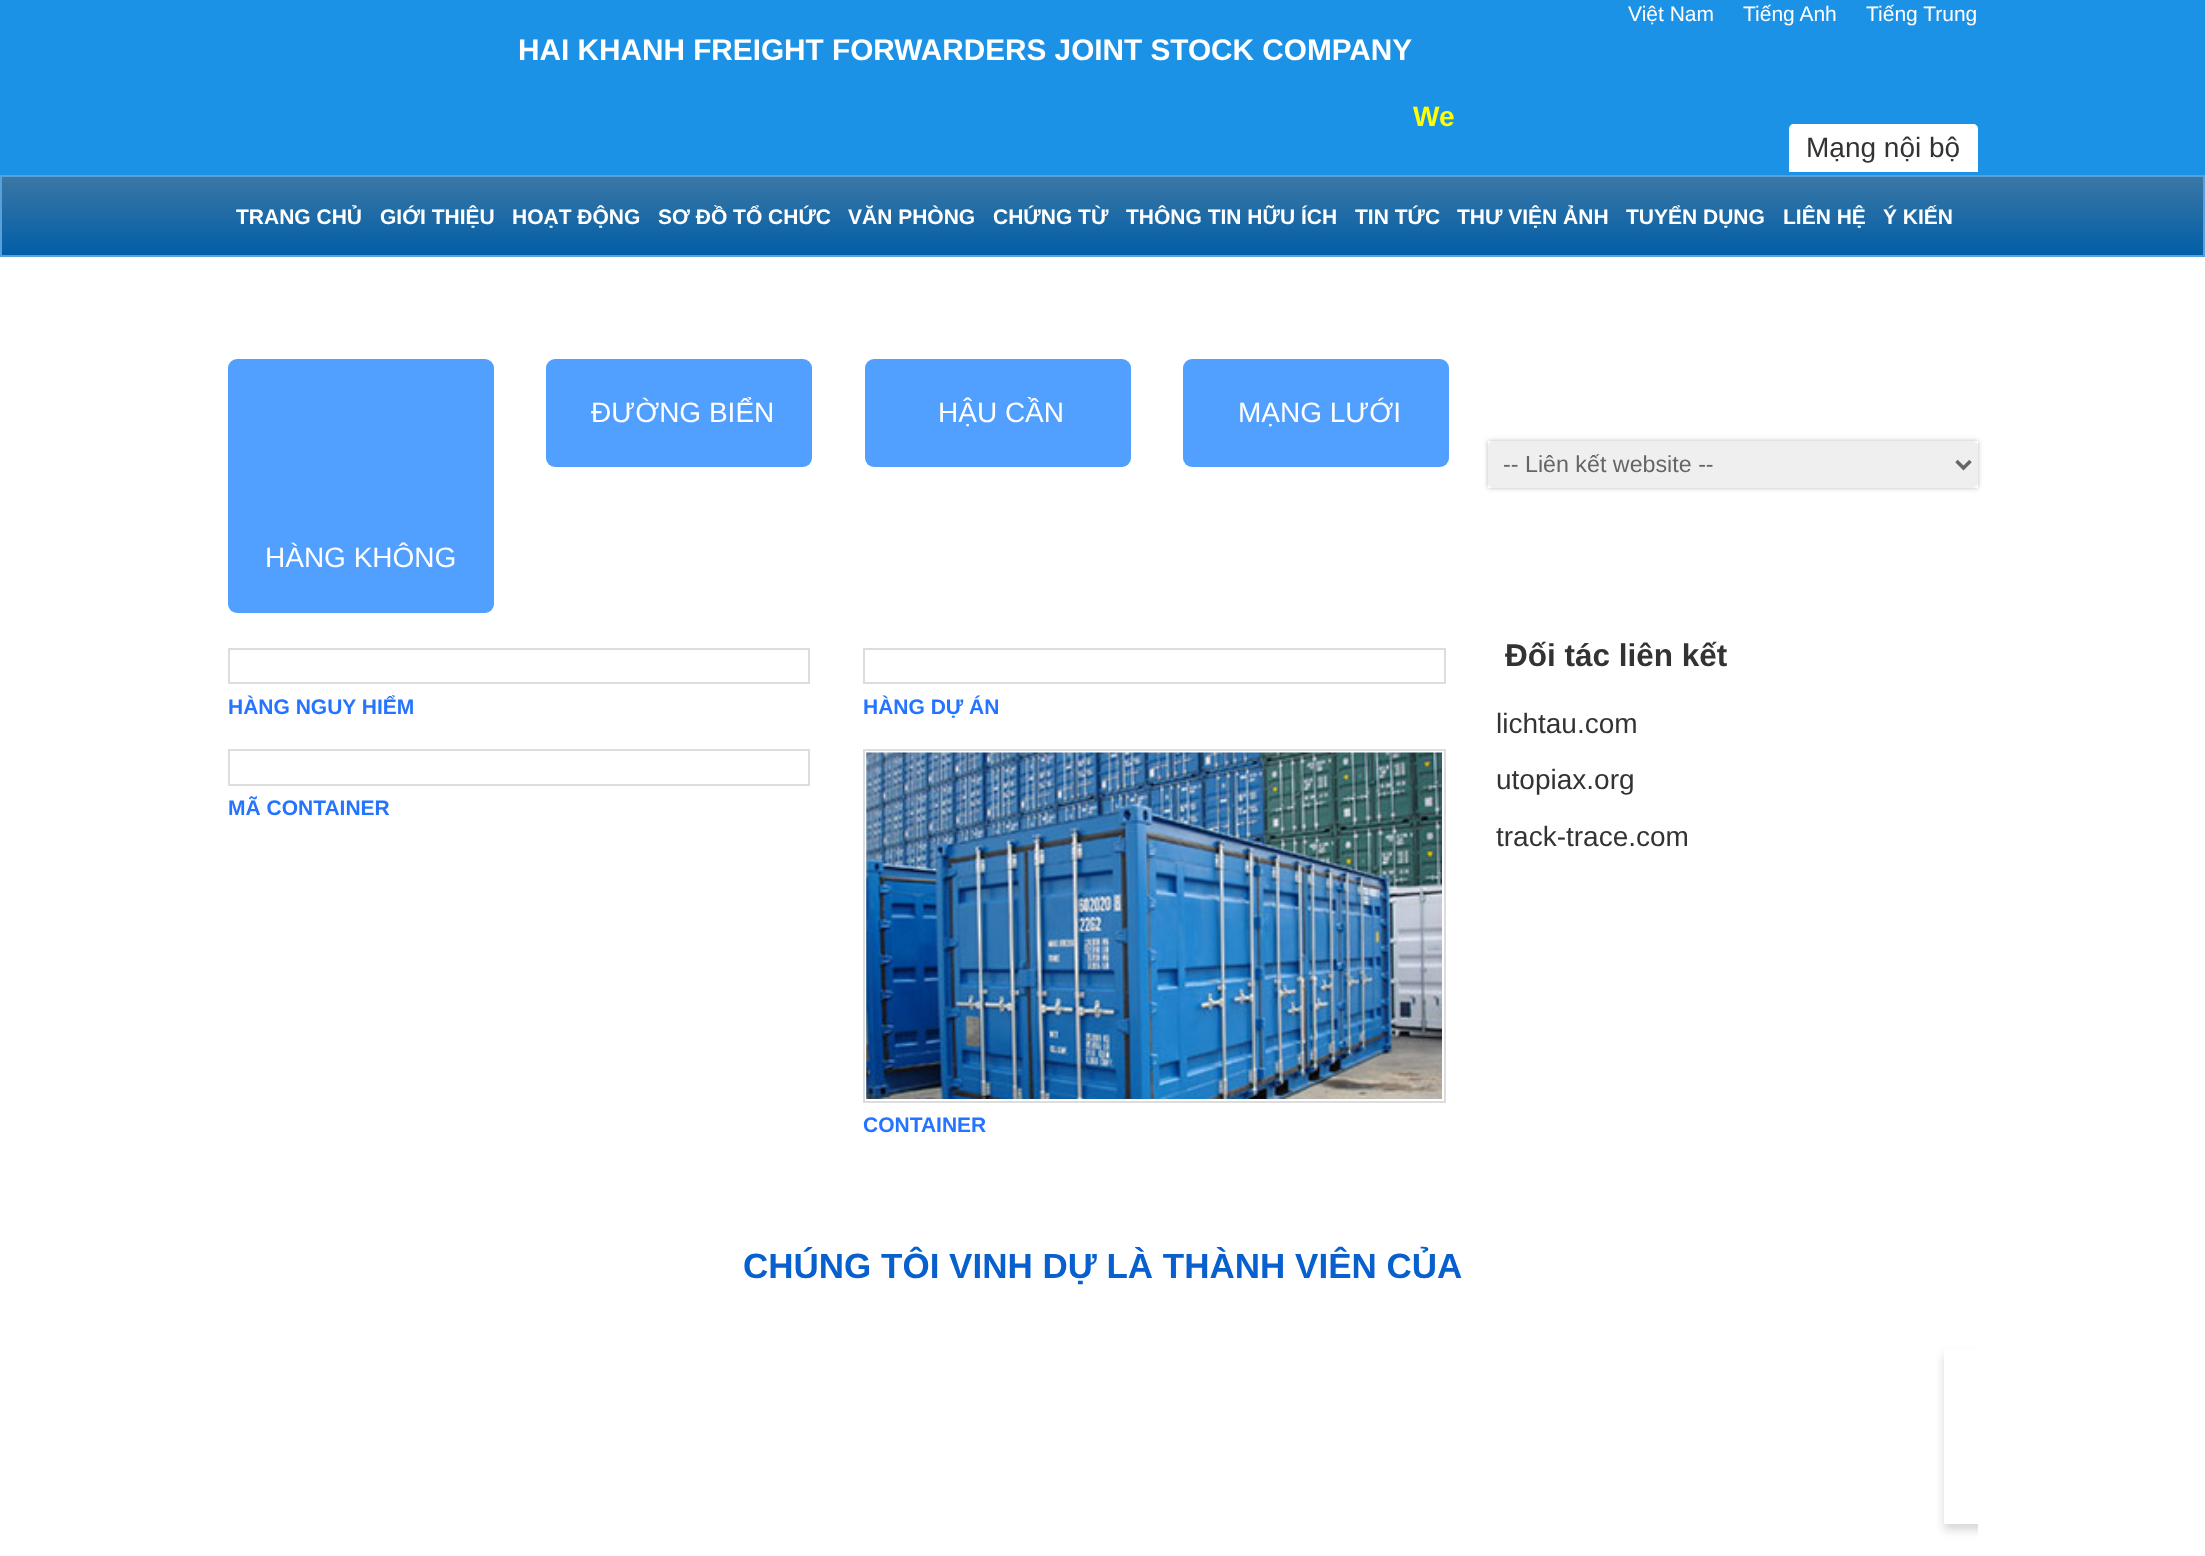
<svg xmlns="http://www.w3.org/2000/svg" width="2205" height="1556" viewBox="0 0 2205 1556">
  <style>
    .t1 { font: bold 29.75px Liberation Sans; fill: #fff; }
    .t2 { font: bold 28px Liberation Sans; fill: #ff0; }
    .t3 { font: 21px Liberation Sans; fill: #fff; }
    .t4 { font: 28px Liberation Sans; fill: #333; }
    .t5 { font: bold 21px Liberation Sans; fill: #fff; }
    .t6 { font: 28px Liberation Sans; fill: #fff; }
    .t7 { font: bold 21px Liberation Sans; fill: #2574ff; }
    .t8 { font: 23.25px Liberation Sans; fill: #666; }
    .t9 { font: bold 31.5px Liberation Sans; fill: #333; }
    .t10 { font: bold 35px Liberation Sans; fill: #0760ce; }
  </style>
  <defs>
    <linearGradient id="g1" gradientUnits="userSpaceOnUse" x1="1103" y1="177" x2="1103" y2="256"><stop offset="0" stop-color="#3a77a5"/><stop offset="1" stop-color="#015ea7"/></linearGradient>
    <clipPath id="clip1"><path d="M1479 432H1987V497H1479ZM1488 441H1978V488H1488Z" clip-rule="evenodd"/></clipPath>
    <clipPath id="clip2"><rect x="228" y="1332" width="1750" height="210"/></clipPath>
  </defs>
  <rect width="100%" height="100%" fill="#fff"/>
  <rect x="0" y="0" width="2205" height="175" fill="#1b92e6"/>
  <text x="518" y="60" class="t1">HAI KHANH FREIGHT FORWARDERS JOINT STOCK COMPANY</text>
  <text x="1413" y="126" class="t2">We</text>
  <text x="1628" y="21" class="t3">Việt Nam</text>
  <text x="1743" y="21" class="t3">Tiếng Anh</text>
  <text x="1866" y="21" class="t3">Tiếng Trung</text>
  <path d="M1794 124H1973C1976 124 1978 126 1978 129V172H1789V129C1789 126 1791 124 1794 124Z" fill="#fff"/>
  <text x="1806" y="157" class="t4">Mạng nội bộ</text>
  <rect x="2" y="177" width="2201" height="78" fill="url(#g1)"/>
  <rect x="1" y="176" width="2203" height="80" fill="none" stroke="#57a1db" stroke-width="2"/>
  <text x="236" y="224" class="t5">TRANG CHỦ</text>
  <text x="380" y="224" class="t5">GIỚI THIỆU</text>
  <text x="512" y="224" class="t5">HOẠT ĐỘNG</text>
  <text x="658" y="224" class="t5">SƠ ĐỒ TỔ CHỨC</text>
  <text x="848" y="224" class="t5">VĂN PHÒNG</text>
  <text x="993" y="224" class="t5">CHỨNG TỪ</text>
  <text x="1126" y="224" class="t5">THÔNG TIN HỮU ÍCH</text>
  <text x="1355" y="224" class="t5">TIN TỨC</text>
  <text x="1457" y="224" class="t5">THƯ VIỆN ẢNH</text>
  <text x="1626" y="224" class="t5">TUYỂN DỤNG</text>
  <text x="1783" y="224" class="t5">LIÊN HỆ</text>
  <text x="1883" y="224" class="t5">Ý KIẾN</text>
  <rect x="546" y="359" width="266" height="108" rx="9" fill="#519fff"/>
  <text x="591" y="422" class="t6">ĐƯỜNG BIỂN</text>
  <rect x="865" y="359" width="266" height="108" rx="9" fill="#519fff"/>
  <text x="938" y="422" class="t6">HẬU CẦN</text>
  <rect x="1183" y="359" width="266" height="108" rx="9" fill="#519fff"/>
  <text x="1238" y="422" class="t6">MẠNG LƯỚI</text>
  <rect x="228" y="359" width="266" height="254" rx="9" fill="#519fff"/>
  <text x="265" y="567" class="t6">HÀNG KHÔNG</text>
  <rect x="229" y="649" width="580" height="34" fill="none" stroke="#ddd" stroke-width="2"/>
  <text x="228" y="714" class="t7">HÀNG NGUY HIỂM</text>
  <rect x="864" y="649" width="581" height="34" fill="none" stroke="#ddd" stroke-width="2"/>
  <text x="863" y="714" class="t7">HÀNG DỰ ÁN</text>
  <rect x="229" y="750" width="580" height="35" fill="none" stroke="#ddd" stroke-width="2"/>
  <text x="228" y="815" class="t7">MÃ CONTAINER</text>
  <rect x="864" y="750" width="581" height="352" fill="none" stroke="#ddd" stroke-width="2"/>
  <image x="866" y="752" width="576" height="347" href="images/1.png"/>
  <text x="863" y="1132" class="t7">CONTAINER</text>
  <g clip-path="url(#clip1)">
    <rect x="1488" y="441" width="490" height="47" fill="#bbb" filter="blur(2.5px)"/>
  </g>
  <rect x="1488" y="441" width="490" height="47" rx="5" fill="#efefef"/>
  <path d="M1956.5 461L1963.5 468L1970.5 461" fill="none" stroke="#666" stroke-width="3.5"/>
  <text x="1503" y="472" class="t8">-- Liên kết website --</text>
  <text x="1505" y="666" class="t9">Đối tác liên kết</text>
  <text x="1496" y="733" class="t4">lichtau.com</text>
  <text x="1496" y="789" class="t4">utopiax.org</text>
  <text x="1496" y="846" class="t4">track-trace.com</text>
  <text x="743" y="1278" class="t10">CHÚNG TÔI VINH DỰ LÀ THÀNH VIÊN CỦA</text>
  <g clip-path="url(#clip2)">
    <rect x="1944" y="1355" width="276" height="175" fill="#00000029" filter="blur(5px)"/>
  </g>
  <rect x="1944" y="1349" width="34" height="175" fill="#fff"/>
</svg>
